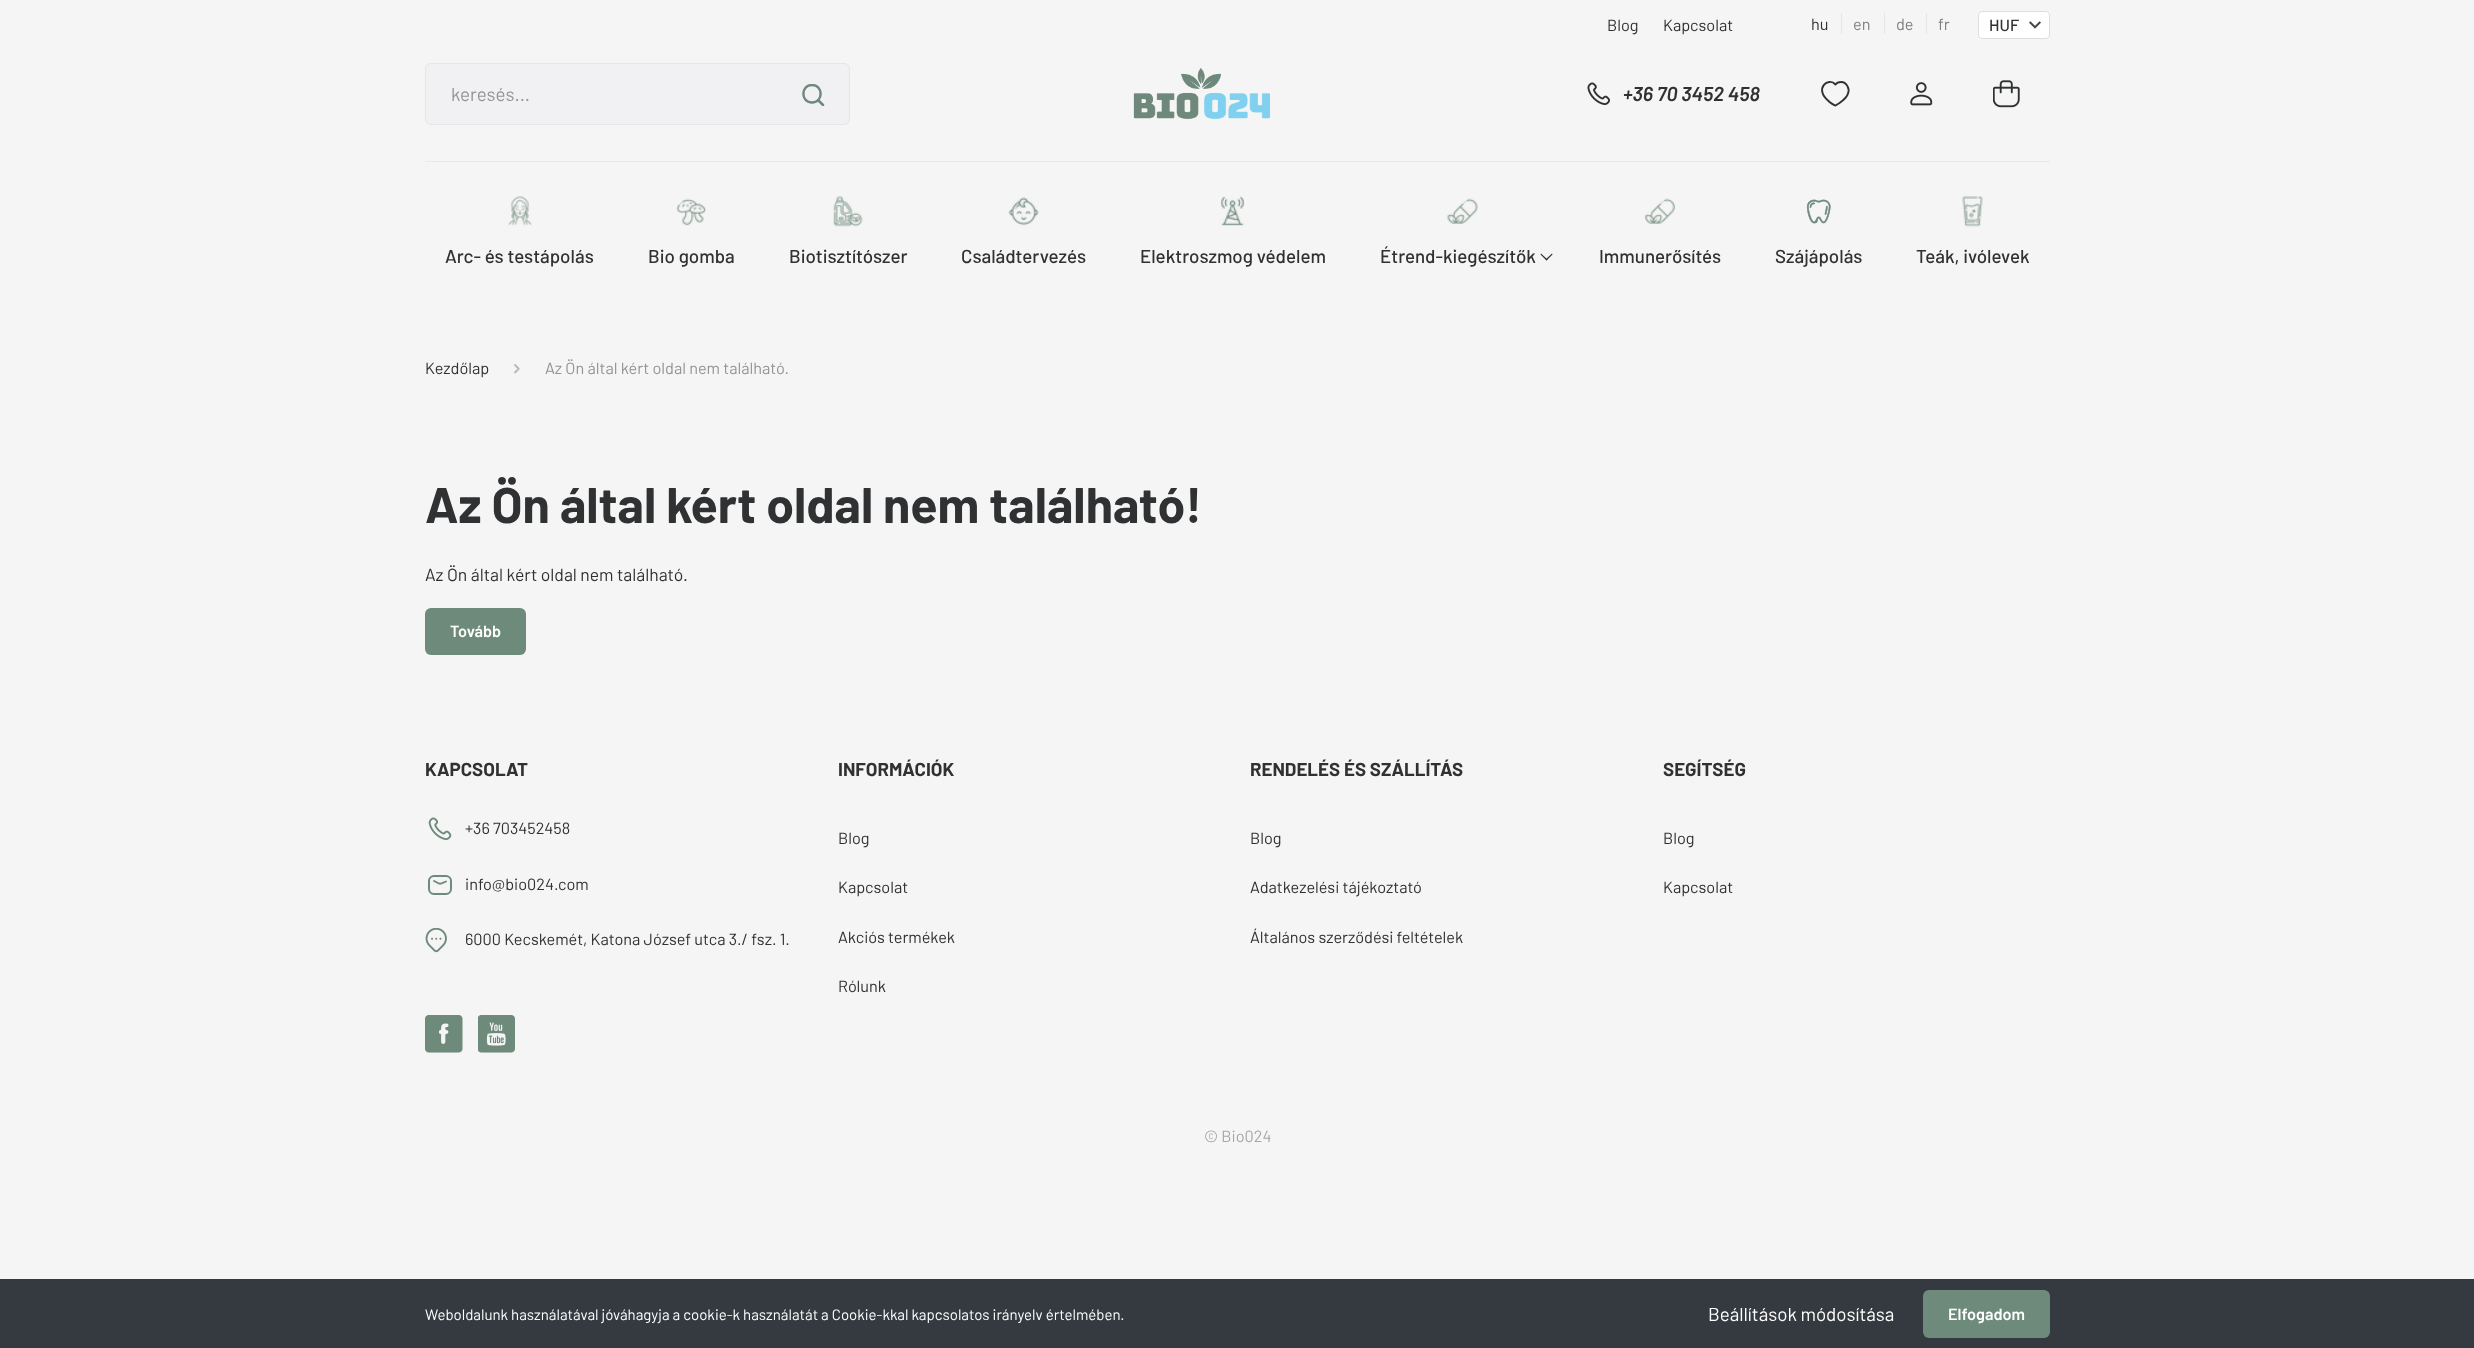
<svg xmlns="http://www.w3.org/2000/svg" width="2474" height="1348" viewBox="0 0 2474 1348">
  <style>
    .t1 { font: 16.25px Barlow; fill: #2f3132; }
    .t2 { font: 16.25px Barlow; fill: #7e7f80; }
    .t3 { font: 500 16.25px Barlow; fill: #2f3132; }
    .t4 { font: 18.75px Barlow; fill: #949496; }
    .t5 { font: italic 600 20px Barlow; fill: #2f3132; }
    .t6 { font: 500 18.75px Barlow; fill: #2f3132; }
    .t7 { font: 16.25px Barlow; fill: #949496; }
    .t8 { font: bold 50px Barlow; fill: #2f3132; }
    .t9 { font: 17.5px Barlow; fill: #2f3132; }
    .t10 { font: 600 16.25px Barlow; fill: #fff; }
    .t11 { font: bold 18.75px Barlow; fill: #2f3132; }
    .t12 { font: 16.25px Barlow; fill: #a7a7a9; }
    .t13 { font: 15px Barlow; fill: #fff; }
    .t14 { font: 18.75px Barlow; fill: #fff; }
  </style>
  <defs>
    <clipPath id="clip1"><rect x="801" y="84" width="24" height="22"/></clipPath>
  </defs>
  <rect width="100%" height="100%" fill="#f5f5f5"/>
  <text x="1607" y="31" class="t1">Blog</text>
  <text x="1663" y="31" class="t1">Kapcsolat</text>
  <text x="1811" y="30" class="t1">hu</text>
  <rect x="1841" y="13" width="1" height="21" fill="#e4e4ea"/>
  <text x="1853" y="30" class="t2">en</text>
  <rect x="1884" y="13" width="1" height="21" fill="#e4e4ea"/>
  <text x="1896" y="30" class="t2">de</text>
  <rect x="1926" y="13" width="1" height="21" fill="#e4e4ea"/>
  <text x="1938" y="30" class="t2">fr</text>
  <rect x="1978" y="11" width="72" height="28" rx="4" fill="#fff"/>
  <image x="2029" y="21" width="12" height="8" href="images/1.png"/>
  <rect x="1978.5" y="11.5" width="71" height="27" rx="3.5" fill="none" stroke="#dddde1"/>
  <text x="1989" y="31" class="t3">HUF</text>
  <rect x="425.5" y="63.5" width="424" height="61" rx="5.5" fill="#f1f1f4" stroke="#e4e4ea"/>
  <text x="451" y="101" class="t4">keresés...</text>
  <g clip-path="url(#clip1)">
    <path d="M823 105L818 100M812 102.5C800.5 102.5 800.5 85 812 85C823.5 85 823.5 102.5 812 102.5Z" fill="none" stroke="#6e8a7b" stroke-width="2.5" stroke-linecap="round" stroke-linejoin="round"/>
  </g>
  <image x="1133" y="68" width="137" height="52" href="images/2.png"/>
  <image x="1587" y="82" width="23" height="23" href="images/3.png"/>
  <text x="1623" y="101" class="t5">+36 70 3452 458</text>
  <path d="M1841 82C1846.5 82 1850 88.5 1848 93.5C1847 97.5 1843 100.5 1839.5 103L1835.5 105.5C1834 105.5 1829.5 102 1828.5 101C1813.5 88.5 1828.5 76.5 1835.5 84.5C1836.5 83 1838 82 1841 82Z" fill="none" stroke="#2f3132" stroke-width="1.9" stroke-linecap="round" stroke-linejoin="round"/>
  <image x="1910" y="82" width="23" height="24" href="images/4.png"/>
  <image x="1993" y="80" width="27" height="28" href="images/5.png"/>
  <rect x="425" y="161" width="1625" height="1" fill="#e8e8ed"/>
  <image x="508" y="196" width="24" height="30" href="images/6.png"/>
  <text x="445" y="263" class="t6">Arc- és testápolás</text>
  <image x="676" y="198" width="31" height="28" href="images/7.png"/>
  <text x="648" y="263" class="t6">Bio gomba</text>
  <image x="833" y="196" width="30" height="31" href="images/8.png"/>
  <text x="789" y="263" class="t6">Biotisztítószer</text>
  <image x="1008" y="197" width="31" height="29" href="images/9.png"/>
  <text x="961" y="263" class="t6">Családtervezés</text>
  <image x="1220" y="196" width="25" height="30" href="images/10.png"/>
  <text x="1140" y="263" class="t6">Elektroszmog védelem</text>
  <image x="1447" y="198" width="31" height="26" href="images/11.png"/>
  <text x="1380" y="263" class="t6">Étrend-kiegészítők</text>
  <path d="M1552 253.5L1552.5 254.5L1546.5 260.5L1545.5 259.5Z" fill="#2f3132"/>
  <path d="M1541 253.5L1547.5 259.5L1546.5 260.5L1540.5 254.5Z" fill="#2f3132"/>
  <image x="1645" y="198" width="30" height="26" href="images/12.png"/>
  <text x="1599" y="263" class="t6">Immunerősítés</text>
  <image x="1806" y="199" width="25" height="25" href="images/13.png"/>
  <text x="1775" y="263" class="t6">Szájápolás</text>
  <image x="1962" y="196" width="21" height="31" href="images/14.png"/>
  <text x="1916" y="263" class="t6">Teák, ivólevek</text>
  <text x="425" y="374" class="t1">Kezdőlap</text>
  <image x="514" y="364" width="6" height="10" href="images/15.png"/>
  <text x="545" y="374" class="t7">Az Ön által kért oldal nem található.</text>
  <text x="425" y="523" class="t8">Az Ön által kért oldal nem található!</text>
  <text x="425" y="581" class="t9">Az Ön által kért oldal nem található.</text>
  <rect x="425" y="608" width="101" height="47" rx="6" fill="#6e8a7b"/>
  <text x="450" y="637" class="t10">Tovább</text>
  <text x="425" y="776" class="t11">KAPCSOLAT</text>
  <image x="428" y="817" width="24" height="23" href="images/16.png"/>
  <text x="465" y="834" class="t1">+36 703452458</text>
  <rect x="429" y="876" width="22" height="18" rx="5" fill="none" stroke="#6e8a7b" stroke-width="2"/>
  <path d="M434 881C441 884.5 439 884.5 446 881.5" fill="none" stroke="#6e8a7b" stroke-width="1.9" stroke-linecap="round" stroke-linejoin="round"/>
  <text x="465" y="890" class="t1">info@bio024.com</text>
  <image x="425" y="928" width="22" height="25" href="images/17.png"/>
  <text x="465" y="945" class="t1">6000 Kecskemét, Katona József utca 3./ fsz. 1.</text>
  <image x="425" y="1015" width="38" height="38" href="images/18.png"/>
  <image x="478" y="1015" width="37" height="38" href="images/19.png"/>
  <text x="838" y="776" class="t11">INFORMÁCIÓK</text>
  <text x="838" y="844" class="t1">Blog</text>
  <text x="838" y="893" class="t1">Kapcsolat</text>
  <text x="838" y="943" class="t1">Akciós termékek</text>
  <text x="838" y="992" class="t1">Rólunk</text>
  <text x="1250" y="776" class="t11">RENDELÉS ÉS SZÁLLÍTÁS</text>
  <text x="1250" y="844" class="t1">Blog</text>
  <text x="1250" y="893" class="t1">Adatkezelési tájékoztató</text>
  <text x="1250" y="943" class="t1">Általános szerződési feltételek</text>
  <text x="1663" y="776" class="t11">SEGÍTSÉG</text>
  <text x="1663" y="844" class="t1">Blog</text>
  <text x="1663" y="893" class="t1">Kapcsolat</text>
  <text x="1204" y="1142" class="t12">© Bio024</text>
  <rect x="0" y="1279" width="2474" height="69" fill="#343a40"/>
  <text x="425" y="1320" class="t13">Weboldalunk használatával jóváhagyja a cookie-k használatát a Cookie-kkal kapcsolatos irányelv értelmében.</text>
  <text x="1708" y="1321" class="t14">Beállítások módosítása</text>
  <rect x="1923" y="1290" width="127" height="48" rx="6" fill="#6e8a7b"/>
  <text x="1948" y="1320" class="t10">Elfogadom</text>
</svg>
